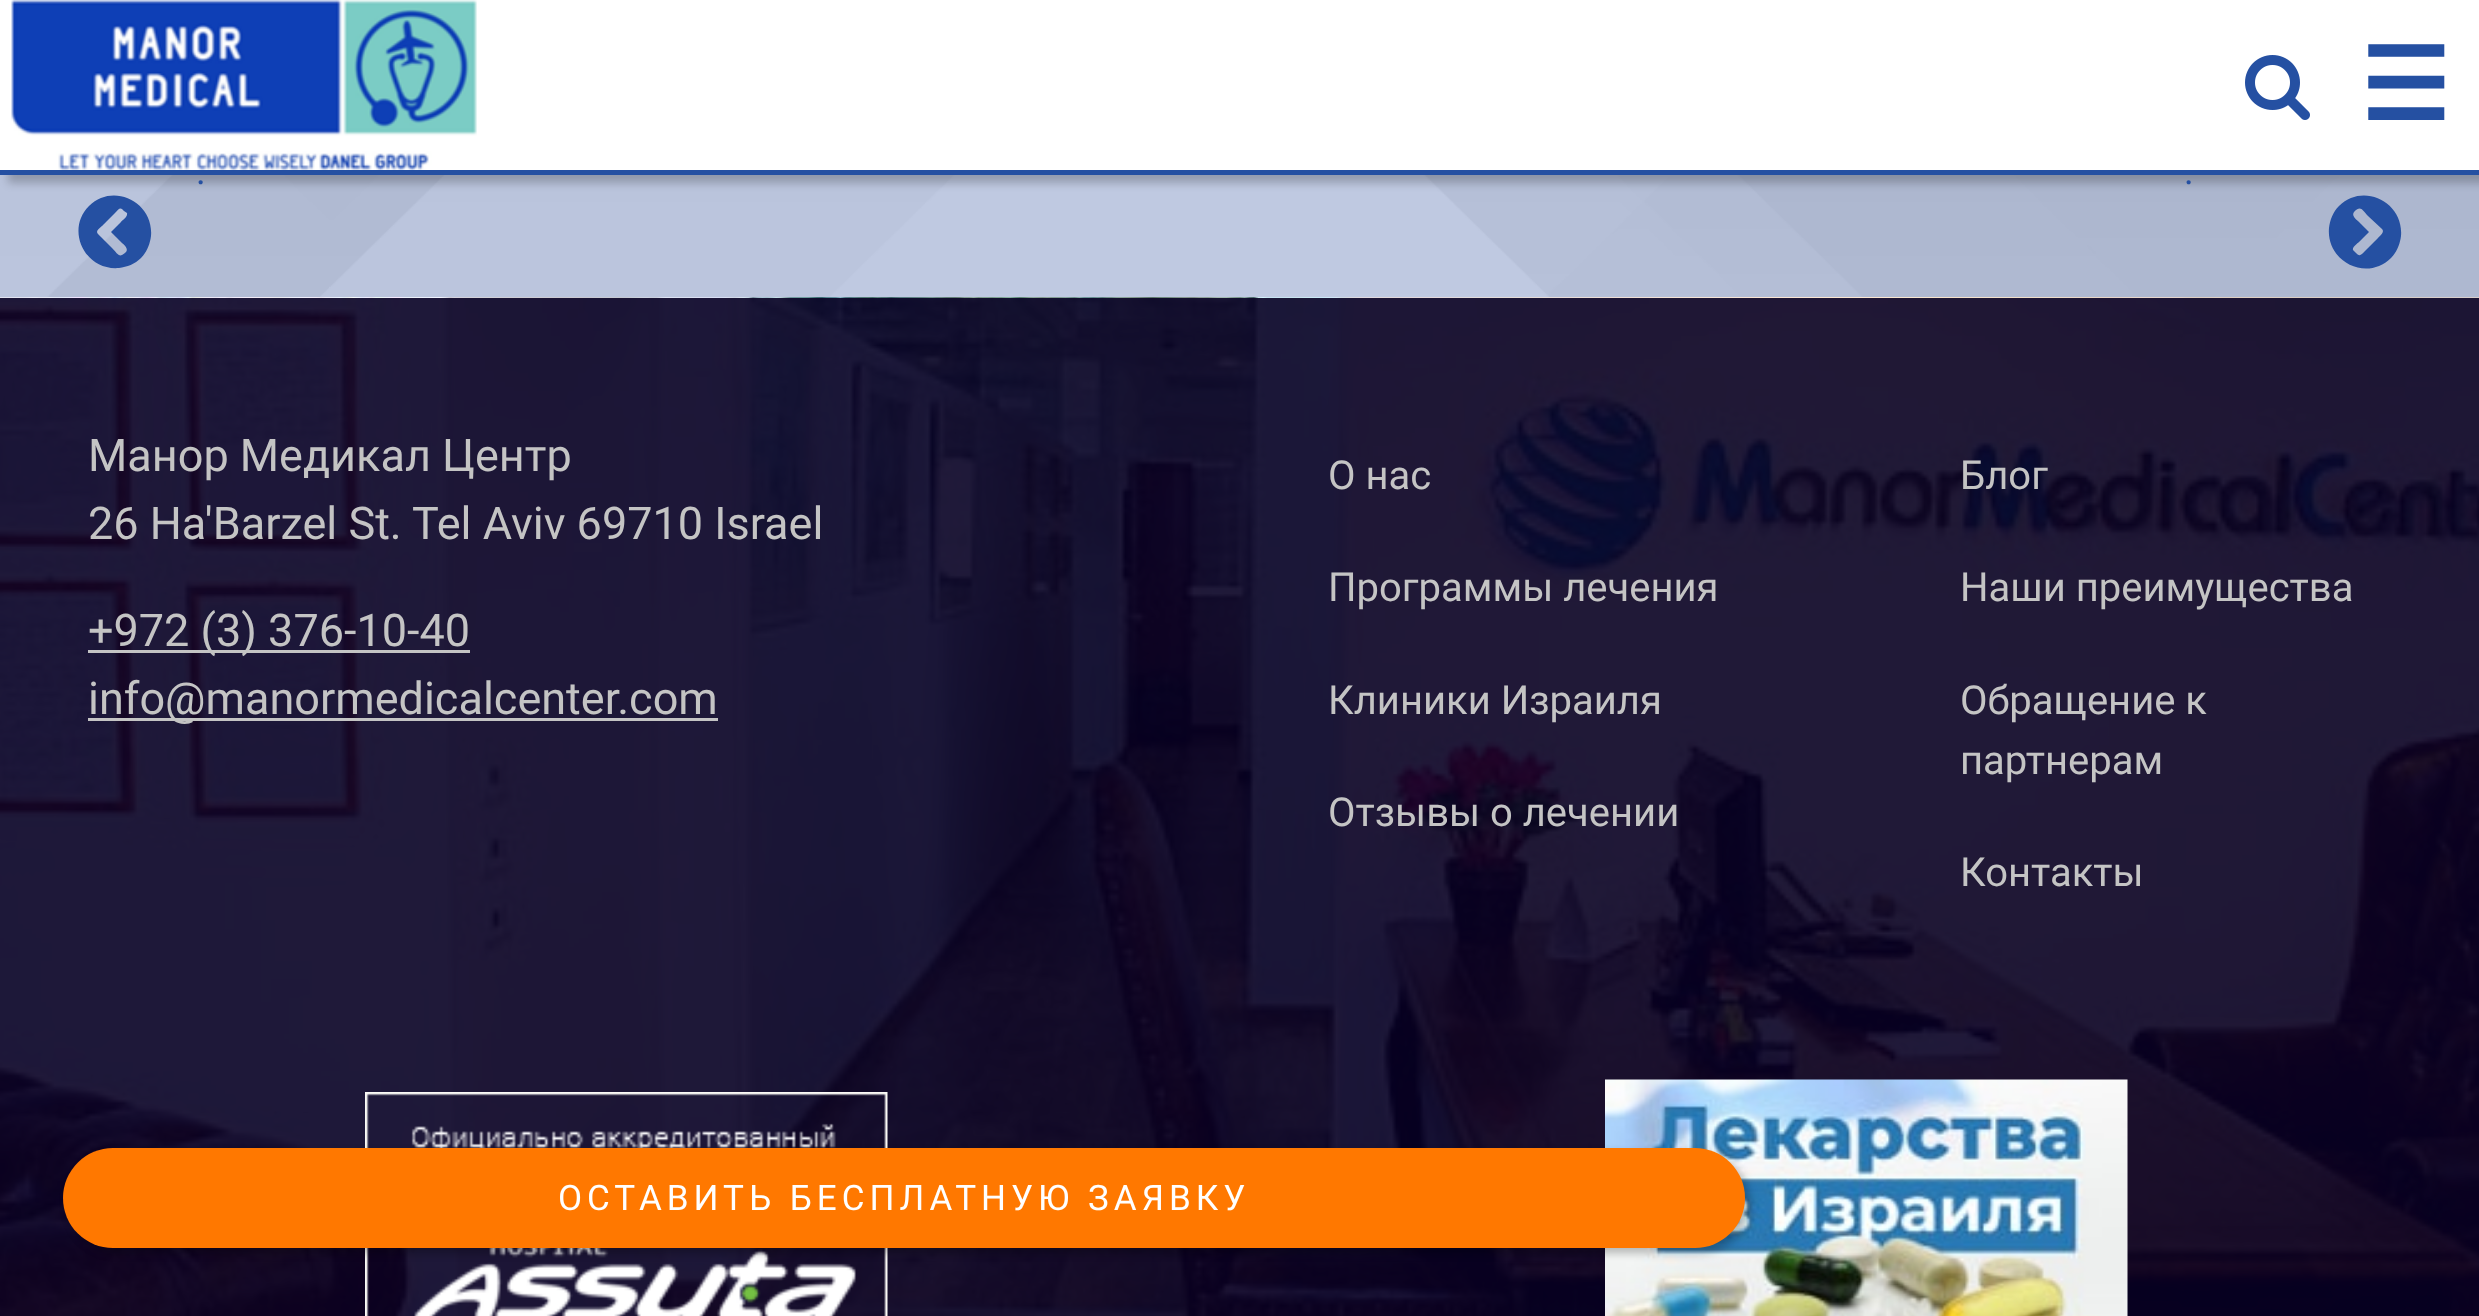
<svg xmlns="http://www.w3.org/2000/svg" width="2479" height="1316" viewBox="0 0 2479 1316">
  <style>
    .t1 { font: bold 100px DejaVu Sans; fill: #2550a2; }
    .t2 { font: 300 50px Roboto; fill: #2550a2; }
    .t3 { font: 45px Roboto; fill: #c4c4c4; }
    .t4 { font: 40px Roboto; fill: #c4c4c4; }
    .t5 { font: 35px Roboto; letter-spacing: 5px; fill: #fff; }
  </style>
  <rect width="100%" height="100%" fill="#cbdbff"/>
  <image x="0" y="175" width="2479" height="122" href="images/1.png"/>
  <path d="M141 258C135 264 127 267 119 268C85 271 65 230 89 206C113 182 154 202 151 236C150 244 147 252 141 258ZM98 234L112 248C118 254 119 259 126 252C129 248 123 244 121 242L111 232L121 222C122 220 128 217 127 213L124 211C120 206 119 209 115 213L102 226C100 228 95 231 98 234Z" fill="#2550a2"/>
  <path d="M2339 206C2363 182 2404 202 2401 236C2400 244 2397 252 2391 258C2367 282 2326 262 2329 228C2330 220 2333 212 2339 206ZM2382 229L2368 216C2362 210 2361 205 2354 212C2351 216 2357 220 2359 222L2369 232L2359 242C2358 243 2352 247 2353 250L2356 253C2360 257 2361 255 2365 251L2378 238C2380 236 2385 232 2382 229Z" fill="#2550a2"/>
  <rect x="8" y="8" width="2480" height="175" fill="#00000038" filter="blur(4px)"/>
  <rect x="0" y="0" width="2479" height="170" fill="#fff"/>
  <image x="2245" y="55" width="65" height="65" href="images/2.png"/>
  <image x="11" y="0" width="466" height="170" href="images/3.png"/>
  <rect x="0" y="170" width="2479" height="5" fill="#2550a2"/>
  <text x="2360" y="120" class="t1">☰</text>
  <text x="195" y="184" class="t2">.</text>
  <text x="2183" y="184" class="t2">.</text>
  <image x="0" y="297" width="2479" height="1019" href="images/4.png"/>
  <text x="88" y="471" class="t3">Манор Медикал Центр</text>
  <text x="88" y="539" class="t3">26 Ha'Barzel St. Tel Aviv 69710 Israel</text>
  <rect x="88" y="650" width="382" height="3" fill="#c4c4c4"/>
  <text x="88" y="646" class="t3">+972 (3) 376-10-40</text>
  <rect x="88" y="718" width="630" height="3" fill="#c4c4c4"/>
  <text x="88" y="714" class="t3">info@manormedicalcenter.com</text>
  <text x="1328" y="489" class="t4">О нас</text>
  <text x="1328" y="601" class="t4">Программы лечения</text>
  <text x="1328" y="714" class="t4">Клиники Израиля</text>
  <text x="1328" y="826" class="t4">Отзывы о лечении</text>
  <text x="1960" y="489" class="t4">Блог</text>
  <text x="1960" y="601" class="t4">Наши преимущества</text>
  <text x="1960" y="714" class="t4">Обращение к</text>
  <text x="1960" y="774" class="t4">партнерам</text>
  <text x="1960" y="886" class="t4">Контакты</text>
  <image x="365" y="1092" width="523" height="224" href="images/5.png"/>
  <image x="1605" y="1079" width="523" height="237" href="images/6.png"/>
  <rect x="68" y="1153" width="1682" height="100" rx="50" fill="#00000042" filter="blur(4px)"/>
  <rect x="63" y="1148" width="1682" height="100" rx="50" fill="#ff7800"/>
  <text x="558" y="1210" class="t5">ОСТАВИТЬ БЕСПЛАТНУЮ ЗАЯВКУ</text>
</svg>
